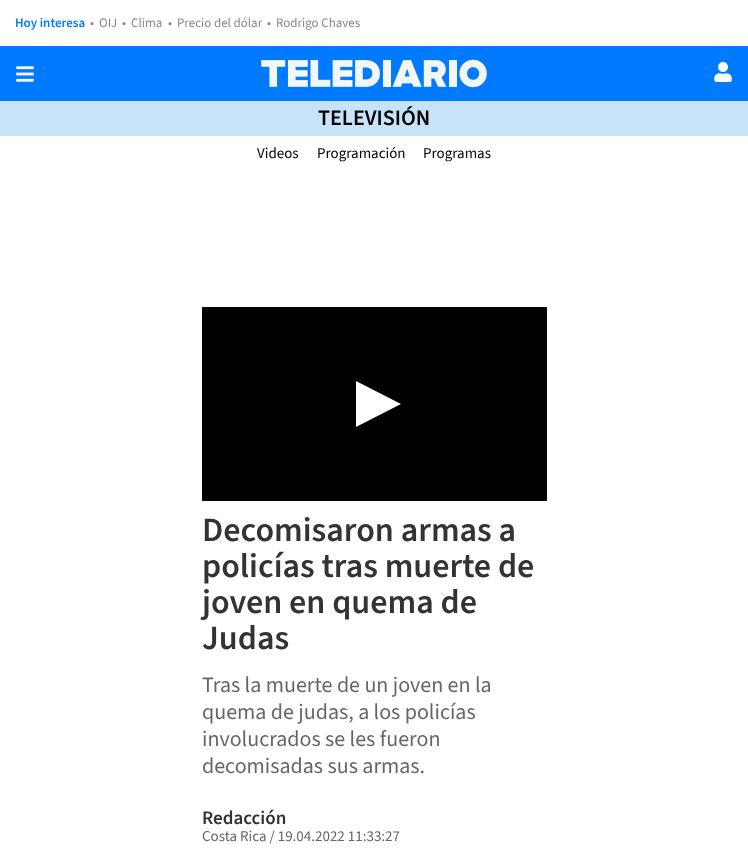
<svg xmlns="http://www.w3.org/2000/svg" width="748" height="859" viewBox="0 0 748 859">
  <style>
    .t1 { font: 600 13px 'Source Sans 3'; fill: #007bff; }
    .t2 { font: 13px 'Source Sans 3'; fill: #888; }
    .t3 { font: 600 22px 'Source Sans 3'; fill: #000; }
    .t4 { font: 15px 'Source Sans 3'; fill: #000; }
    .t5 { font: 600 34px 'Source Sans 3'; fill: #333; }
    .t6 { font: 22px 'Source Sans 3'; fill: #666; }
    .t7 { font: 600 19px 'Source Sans 3'; fill: #333; }
    .t8 { font: 15px 'Source Sans 3'; fill: #666; }
  </style>
  <rect width="100%" height="100%" fill="#fff"/>
  <text x="15" y="27" class="t1">Hoy interesa</text>
  <text x="90" y="27" class="t2">•</text>
  <text x="99" y="27" class="t2">OIJ</text>
  <text x="122" y="27" class="t2">•</text>
  <text x="131" y="27" class="t2">Clima</text>
  <text x="168" y="27" class="t2">•</text>
  <text x="177" y="27" class="t2">Precio del dólar</text>
  <text x="267" y="27" class="t2">•</text>
  <text x="276" y="27" class="t2">Rodrigo Chaves</text>
  <rect x="0" y="46" width="748" height="55" fill="#007bff"/>
  <image x="16" y="66" width="18" height="16" href="images/1.png"/>
  <image x="261" y="59" width="226" height="29" href="images/2.png"/>
  <image x="714" y="62" width="18" height="20" href="images/3.png"/>
  <rect x="0" y="101" width="748" height="35" fill="#c8e3f9"/>
  <text x="318" y="125" class="t3">TELEVISIÓN</text>
  <text x="257" y="158" class="t4">Videos</text>
  <text x="317" y="158" class="t4">Programación</text>
  <text x="423" y="158" class="t4">Programas</text>
  <rect x="202" y="307" width="345" height="194" fill="#000"/>
  <path d="M356 427V381L401 404Z" fill="#fff"/>
  <text x="202" y="541" class="t5">Decomisaron armas a</text>
  <text x="202" y="577" class="t5">policías tras muerte de</text>
  <text x="202" y="613" class="t5">joven en quema de</text>
  <text x="202" y="649" class="t5">Judas</text>
  <text x="202" y="692" class="t6">Tras la muerte de un joven en la</text>
  <text x="202" y="719" class="t6">quema de judas, a los policías</text>
  <text x="202" y="746" class="t6">involucrados se les fueron</text>
  <text x="202" y="773" class="t6">decomisadas sus armas.</text>
  <text x="202" y="824" class="t7">Redacción</text>
  <text x="202" y="841" class="t8">Costa Rica / 19.04.2022 11:33:27</text>
</svg>
